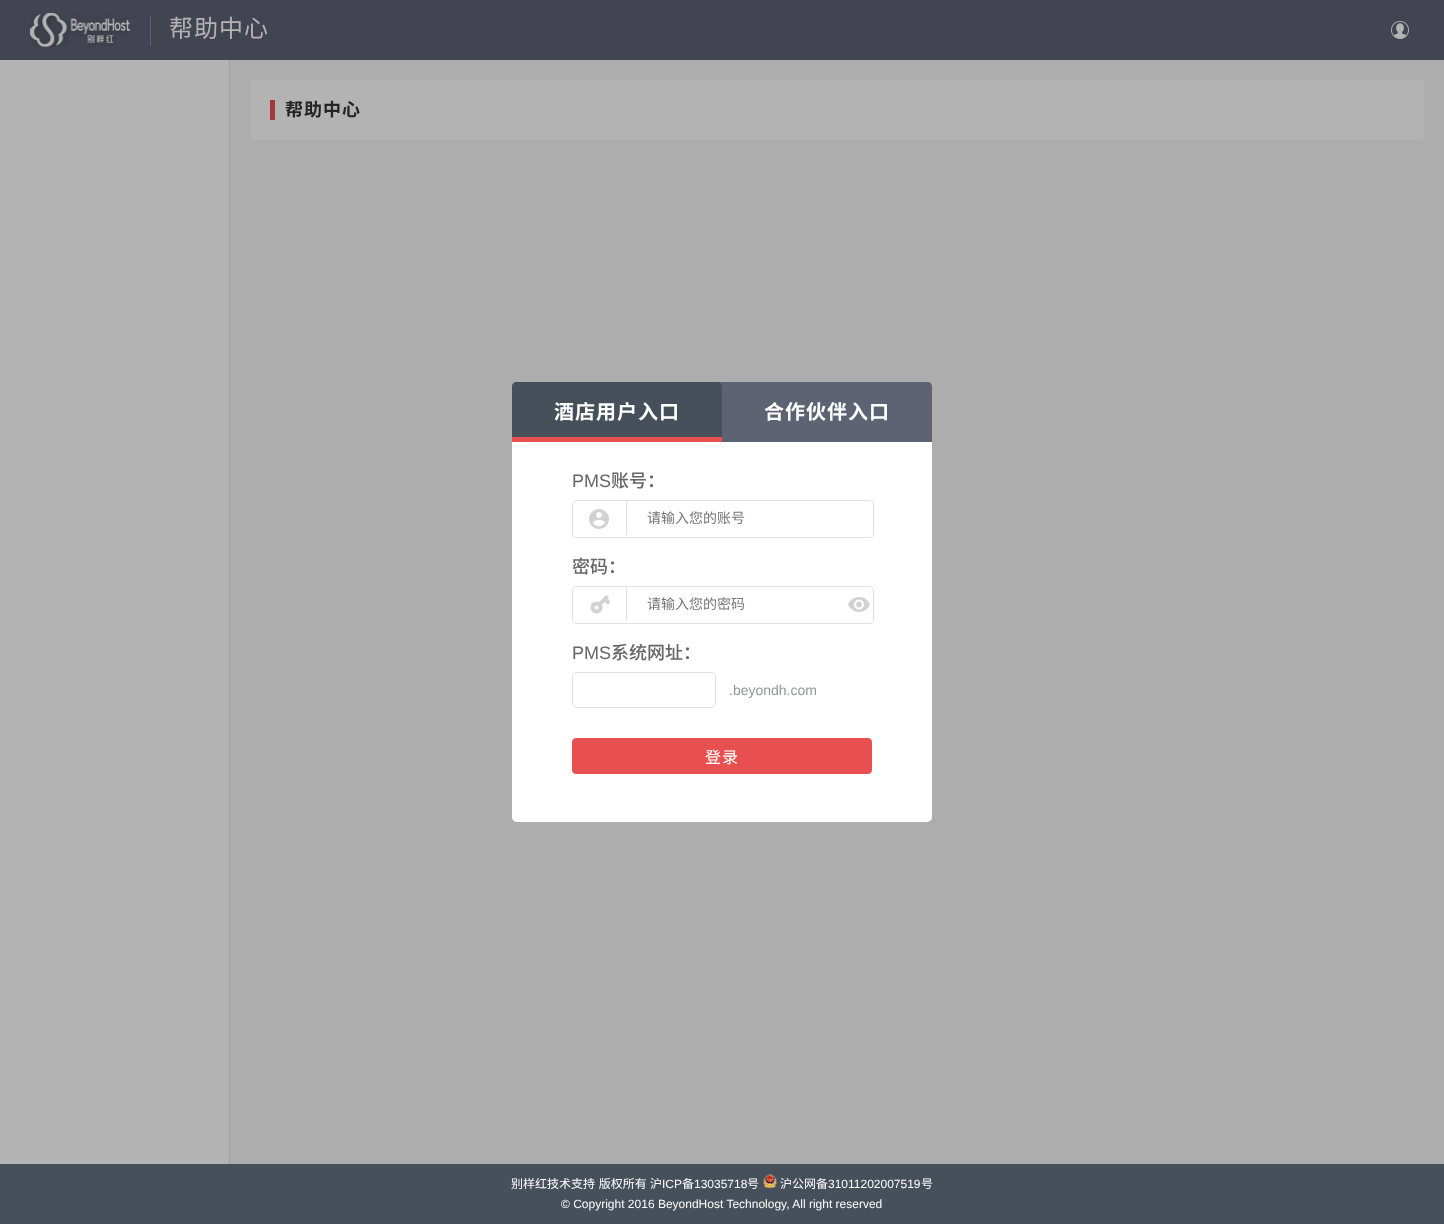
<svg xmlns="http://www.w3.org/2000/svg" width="1444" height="1224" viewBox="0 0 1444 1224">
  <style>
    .t1 { font: 24px Noto Sans CJK SC; letter-spacing: 1px; fill: #b3b3b3; }
    .t2 { font: bold 18px Noto Sans CJK SC; letter-spacing: 1px; fill: #242424; }
    .t3 { font: bold 20px Noto Sans CJK SC; letter-spacing: 1px; fill: #fff; }
    .t4 { font: 18px Liberation Sans; fill: #666; }
    .t5 { font: 500 18px Noto Sans CJK SC; fill: #666; }
    .t6 { font: 14px Noto Sans CJK SC; fill: #757575; }
    .t7 { font: 14px Liberation Sans; fill: #929699; }
    .t8 { font: 16px Noto Sans CJK SC; letter-spacing: 1px; fill: #fff; }
    .t9 { font: 12px Noto Sans CJK SC; fill: #fff; }
    .t10 { font: 12px Liberation Sans; fill: #fff; }
  </style>
  <rect width="100%" height="100%" fill="#adadad"/>
  <rect x="0" y="0" width="1444" height="60" fill="#424551"/>
  <image x="30" y="13" width="100" height="34" href="images/1.png"/>
  <rect x="150" y="16" width="1" height="30" fill="#5b6171"/>
  <text x="169" y="37" class="t1">帮助中心</text>
  <image x="1391" y="21" width="18" height="18" href="images/2.png"/>
  <rect x="0" y="60" width="229" height="1104" fill="#b3b3b3"/>
  <rect x="229" y="60" width="1" height="1104" fill="#a0a0a0"/>
  <rect x="250" y="80" width="1174" height="60" rx="4" fill="#b3b3b3"/>
  <rect x="270" y="100" width="5" height="20" fill="#a23838"/>
  <text x="285" y="116" class="t2">帮助中心</text>
  <rect x="512" y="382" width="420" height="440" rx="5" fill="#fff"/>
  <path d="M516 382H928C930 382 932 384 932 386V442H512V386C512 384 514 382 516 382Z" fill="#5e6373"/>
  <path d="M517 382H717C720 382 722 384 722 387V437H512V387C512 384 514 382 517 382Z" fill="#45505a"/>
  <rect x="512" y="437" width="210" height="5" fill="#e85050"/>
  <text x="554" y="419" class="t3">酒店用户入口</text>
  <text x="764" y="419" class="t3">合作伙伴入口</text>
  <text x="572" y="487" class="t4">PMS</text>
  <text x="611" y="487" class="t5">账号：</text>
  <rect x="572.5" y="500.5" width="301" height="37" rx="3.5" fill="none" stroke="#e0e3e5"/>
  <image x="589" y="509" width="20" height="20" href="images/3.png"/>
  <rect x="626" y="501" width="1" height="34" fill="#e0e3e5"/>
  <text x="647" y="523" class="t6">请输入您的账号</text>
  <text x="572" y="573" class="t5">密码：</text>
  <rect x="572.5" y="586.5" width="301" height="37" rx="3.5" fill="none" stroke="#e0e3e5"/>
  <image x="590" y="595" width="20" height="19" href="images/4.png"/>
  <rect x="626" y="587" width="1" height="34" fill="#e0e3e5"/>
  <text x="647" y="609" class="t6">请输入您的密码</text>
  <image x="848" y="597" width="22" height="15" href="images/5.png"/>
  <text x="572" y="659" class="t4">PMS</text>
  <text x="611" y="659" class="t5">系统网址：</text>
  <rect x="572.5" y="672.5" width="143" height="35" rx="3.5" fill="none" stroke="#e0e3e5"/>
  <text x="729" y="695" class="t7">.beyondh.com</text>
  <rect x="572.5" y="738.5" width="299" height="35" rx="3.5" fill="#e85050" stroke="#e85050"/>
  <text x="705" y="763" class="t8">登录</text>
  <rect x="0" y="1164" width="1444" height="60" fill="#45505a"/>
  <text x="511" y="1188" word-spacing="1" class="t9">别样红技术支持 版权所有</text>
  <text x="650" y="1188" class="t9">沪</text>
  <text x="662" y="1188" class="t10">ICP</text>
  <text x="682" y="1188" class="t9">备</text>
  <text x="694" y="1188" class="t10">13035718</text>
  <text x="747" y="1188" class="t9">号</text>
  <image x="763" y="1174" width="14" height="14" href="images/6.png"/>
  <text x="780" y="1188" class="t9">沪公网备</text>
  <text x="828" y="1188" class="t10">31011202007519</text>
  <text x="921" y="1188" class="t9">号</text>
  <text x="561" y="1208" class="t10">© Copyright 2016 BeyondHost Technology, All right reserved</text>
</svg>
